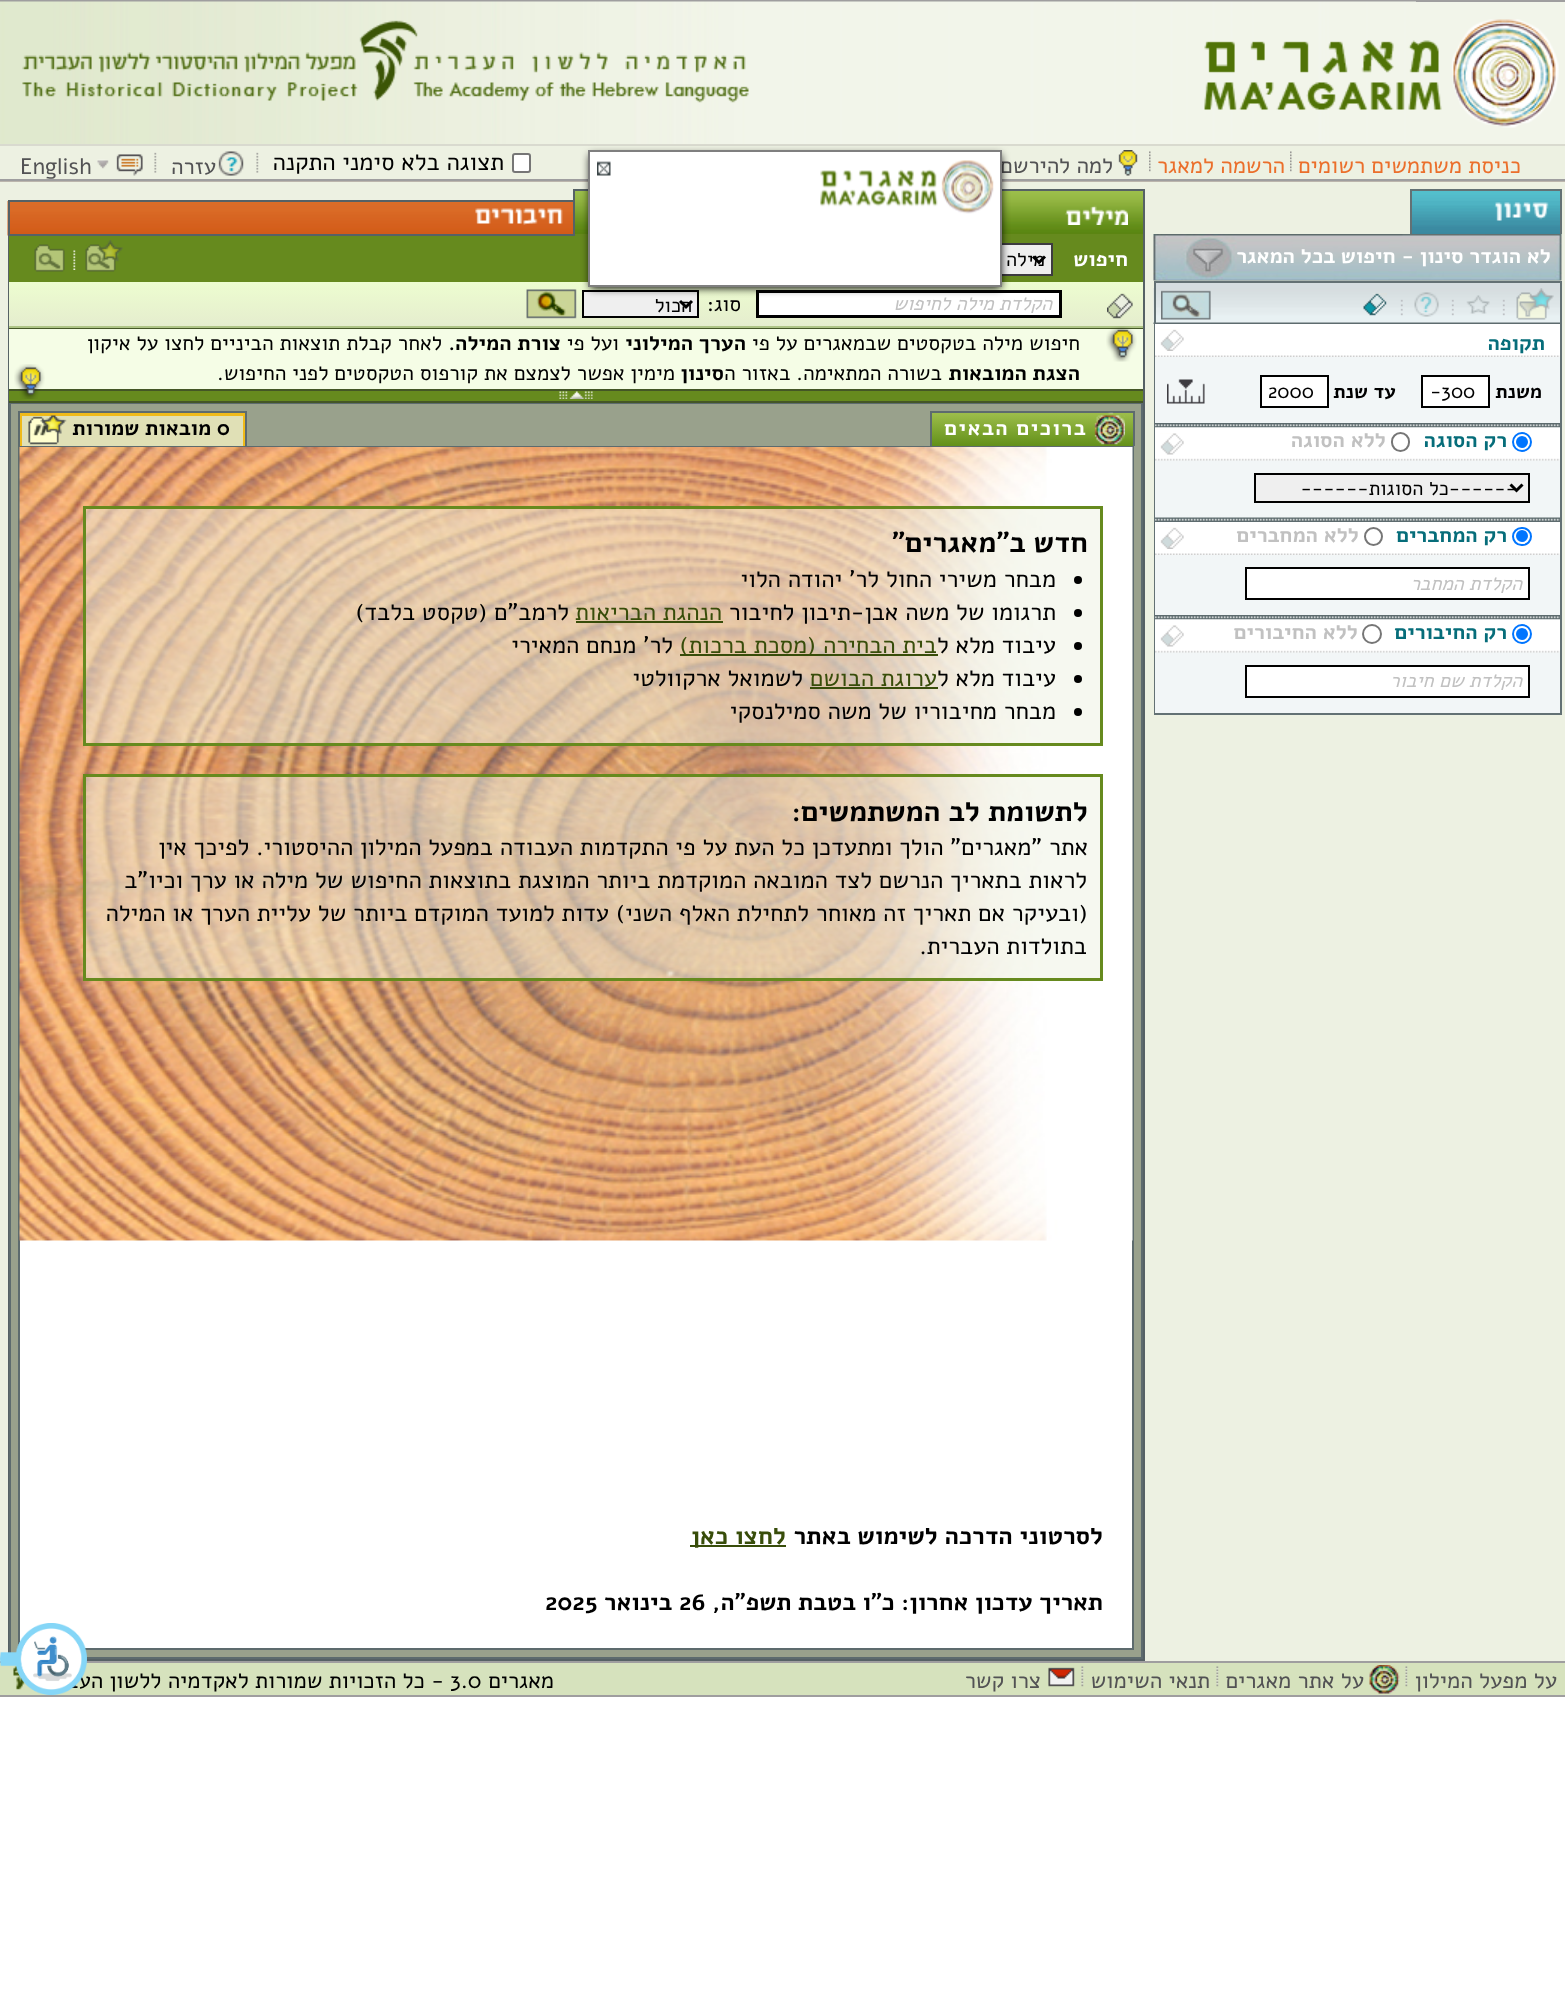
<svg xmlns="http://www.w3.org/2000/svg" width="1565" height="1994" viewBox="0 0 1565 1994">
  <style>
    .t1 { font: 22.5px Alef; direction: rtl; fill: #eb6f2b; }
    .t2 { font: 22.5px Alef; direction: rtl; fill: #525254; }
    .t3 { font: 24px Alef; direction: rtl; fill: #000; }
    .t4 { font: 22.5px Alef; fill: #525254; }
    .t5 { font: bold 21px Alef; direction: rtl; fill: #fff; }
    .t6 { font: bold 21px Alef; direction: rtl; fill: #066d7a; }
    .t7 { font: bold 19.5px Alef; direction: rtl; fill: #000; }
    .t8 { font: 20px Alef; fill: #000; }
    .t9 { font: bold 21px Alef; direction: rtl; fill: #c1c1c1; }
    .t10 { font: 20px Alef; direction: rtl; fill: #000; }
    .t11 { font: italic 19.5px Alef; direction: rtl; fill: #c1c1c1; }
    .t12 { font: 21px Alef; direction: rtl; fill: #000; }
    .t13 { font: bold 21px Alef; direction: rtl; fill: #000; }
    .t14 { font: bold 21px Alef; letter-spacing: 1.5px; direction: rtl; fill: #fff; }
    .t15 { font: bold 21px Alef; fill: #000; }
    .t16 { font: bold 28.75px Alef; direction: rtl; fill: #000; }
    .t17 { font: 24px Alef; direction: rtl; fill: #384d0a; }
    .t18 { font: bold 24.5px Alef; direction: rtl; fill: #000; }
    .t19 { font: bold 24.5px Alef; direction: rtl; fill: #384d0a; }
    .t20 { font: bold 24px Alef; direction: rtl; fill: #000; }
    .t21 { font: bold 24px Alef; fill: #000; }
    .t22 { font: 22.5px Alef; direction: rtl; fill: #000; }
    .t23 { font: 22.5px Alef; fill: #000; }
  </style>
  <defs>
    <linearGradient id="g1" gradientUnits="userSpaceOnUse" x1="9" y1="282" x2="9" y2="326"><stop offset="0" stop-color="#edfdd0"/><stop offset="1" stop-color="#e5edce"/></linearGradient>
    <linearGradient id="g2" gradientUnits="userSpaceOnUse" x1="932" y1="413" x2="932" y2="446"><stop offset="0" stop-color="#9dbe4b"/><stop offset="1" stop-color="#639019"/></linearGradient>
  </defs>
  <rect width="100%" height="100%" fill="#fff"/>
  <rect x="0" y="146" width="1565" height="1515" fill="#edf1e2"/>
  <rect x="0" y="0" width="1565" height="2" fill="#9f9e9f"/>
  <rect x="0" y="1695" width="1565" height="2" fill="#9f9e9f"/>
  <rect x="0" y="181" width="1565" height="1" fill="#bbb5ac"/>
  <rect x="1416" y="2" width="149" height="142" fill="#f2f5ea"/>
  <image x="0" y="1" width="1416" height="143" href="images/1.png"/>
  <image x="1204" y="19" width="355" height="109" href="images/2.png"/>
  <image x="22" y="20" width="727" height="83" href="images/3.png"/>
  <rect x="0" y="144" width="1565" height="2" fill="#d9dacf"/>
  <rect x="0" y="179" width="1565" height="2" fill="#9f9e9f"/>
  <image x="1290" y="151" width="2" height="21" href="images/4.png"/>
  <text x="1521" y="173" class="t1">כניסת משתמשים רשומים</text>
  <image x="1149" y="151" width="2" height="21" href="images/4.png"/>
  <text x="1285" y="173" class="t1">הרשמה למאגר</text>
  <image x="1118" y="150" width="20" height="26" href="images/5.png"/>
  <text x="1113" y="173" class="t2">למה להירשם</text>
  <rect x="513" y="154" width="17" height="18" rx="2" fill="#fff" stroke="#767676" stroke-width="2"/>
  <text x="504" y="170" class="t3">תצוגה בלא סימני התקנה</text>
  <image x="256" y="152" width="3" height="21" href="images/6.png"/>
  <image x="218" y="151" width="26" height="25" href="images/7.png"/>
  <text x="216" y="174" class="t2">עזרה</text>
  <image x="154" y="152" width="3" height="21" href="images/6.png"/>
  <image x="97" y="154" width="46" height="22" href="images/8.png"/>
  <text x="20" y="174" class="t4">English</text>
  <rect x="8" y="234" width="1" height="1427" fill="#566165"/>
  <image x="7" y="201" width="566" height="35" href="images/31.png"/>
  <rect x="9" y="201" width="569" height="34" fill="none" stroke="#566165" stroke-width="2"/>
  <rect x="575" y="234" width="568" height="2" fill="#668a1e"/>
  <image x="575" y="191" width="568" height="43" href="images/29.png"/>
  <rect x="573" y="189" width="572" height="2" fill="#566165"/>
  <rect x="9" y="236" width="1134" height="165" fill="#668a1e"/>
  <rect x="1002" y="245" width="49" height="29" fill="#efefef"/>
  <rect x="895" y="244" width="157" height="31" fill="none" stroke="#3d3b40" stroke-width="2"/>
  <rect x="9" y="282" width="1134" height="44" fill="url(#g1)"/>
  <rect x="757.5" y="291.5" width="303" height="25" fill="#fff" stroke="#000" stroke-width="3"/>
  <rect x="583" y="291" width="115" height="26" fill="#efefef" stroke="#000" stroke-width="2"/>
  <path d="M680 301L686 307L692 301" fill="none" stroke="#000" stroke-width="3"/>
  <image x="526" y="289" width="51" height="30" href="images/37.png"/>
  <rect x="590" y="155" width="411" height="133" fill="#000" filter="blur(4.5px)"/>
  <rect x="590" y="152" width="410" height="133" fill="#fff"/>
  <image x="820" y="160" width="174" height="54" href="images/9.png"/>
  <rect x="589" y="151" width="412" height="135" fill="none" stroke="#7f7f7f" stroke-width="2"/>
  <image x="597" y="161" width="14" height="15" href="images/10.png"/>
  <image x="1412" y="191" width="148" height="43" href="images/11.png"/>
  <rect x="1410" y="189" width="152" height="2" fill="#637174"/>
  <rect x="1560" y="189" width="2" height="45" fill="#637174"/>
  <rect x="1410" y="189" width="2" height="45" fill="#637174"/>
  <image x="1494" y="202" width="55" height="19" href="images/12.png"/>
  <image x="1153" y="234" width="409" height="47" href="images/13.png"/>
  <text x="1551" y="263" class="t5">לא הוגדר סינון - חיפוש בכל המאגר</text>
  <rect x="1156" y="283" width="404" height="5" fill="#d5dde0"/>
  <image x="1153" y="288" width="407" height="36" href="images/14.png"/>
  <rect x="1154" y="281" width="408" height="2" fill="#637174"/>
  <rect x="1560" y="281" width="2" height="433" fill="#637174"/>
  <rect x="1154" y="281" width="2" height="43" fill="#637174"/>
  <image x="1502" y="299" width="3" height="17" href="images/15.png"/>
  <image x="1516" y="288" width="38" height="32" href="images/16.png"/>
  <image x="1451" y="299" width="3" height="17" href="images/15.png"/>
  <image x="1466" y="295" width="24" height="19" href="images/17.png"/>
  <image x="1400" y="299" width="3" height="17" href="images/15.png"/>
  <image x="1414" y="292" width="25" height="25" href="images/18.png"/>
  <image x="1363" y="293" width="24" height="23" href="images/19.png"/>
  <image x="1161" y="290" width="50" height="30" href="images/20.png"/>
  <rect x="1154" y="713" width="408" height="2" fill="#637174"/>
  <rect x="1154" y="324" width="2" height="390" fill="#637174"/>
  <rect x="1155" y="357" width="405" height="71" fill="#f2f6f7"/>
  <image x="1155" y="324" width="405" height="33" href="images/21.png"/>
  <image x="1155" y="423" width="405" height="5" href="images/22.png"/>
  <text x="1545" y="350" class="t6">תקופה</text>
  <image x="1160" y="329" width="24" height="22" href="images/23.png"/>
  <text x="1542" y="398" class="t7">משנת</text>
  <rect x="1422" y="376" width="67" height="31" fill="#fff" stroke="#000" stroke-width="2"/>
  <text x="1430" y="398" class="t8">-300</text>
  <text x="1396" y="398" class="t7">עד שנת</text>
  <rect x="1261" y="376" width="67" height="31" fill="#fff" stroke="#000" stroke-width="2"/>
  <text x="1268" y="398" class="t8">2000</text>
  <image x="1167" y="379" width="38" height="25" href="images/24.png"/>
  <rect x="1155" y="460" width="405" height="58" fill="#f2f6f7"/>
  <image x="1155" y="427" width="405" height="34" href="images/25.png"/>
  <image x="1155" y="517" width="405" height="5" href="images/26.png"/>
  <circle cx="1522" cy="442" r="9" fill="none" stroke="#0075ff" stroke-width="2"/>
  <circle cx="1522" cy="442" r="6" fill="#0075ff"/>
  <text x="1507" y="447" class="t6">רק הסוגה</text>
  <rect x="1392" y="433" width="17" height="18" rx="8.5" fill="none" stroke="#767676" stroke-width="2"/>
  <text x="1386" y="447" class="t9">ללא הסוגה</text>
  <image x="1160" y="433" width="24" height="22" href="images/27.png"/>
  <rect x="1255" y="474" width="274" height="28" fill="#efefef" stroke="#000" stroke-width="2"/>
  <path d="M1510.5 484.5L1516.5 490.5L1522.5 484.5" fill="none" stroke="#000" stroke-width="3"/>
  <text x="1517" y="495" class="t10">------כל הסוגות------</text>
  <rect x="1155" y="555" width="405" height="65" fill="#f2f6f7"/>
  <image x="1155" y="522" width="405" height="33" href="images/21.png"/>
  <image x="1155" y="615" width="405" height="5" href="images/28.png"/>
  <rect x="1513" y="528" width="18" height="17" rx="8.5" fill="none" stroke="#0075ff" stroke-width="2"/>
  <circle cx="1522" cy="536" r="6" fill="#0075ff"/>
  <text x="1507" y="542" class="t6">רק המחברים</text>
  <circle cx="1373.5" cy="536.5" r="8.5" fill="none" stroke="#767676" stroke-width="2"/>
  <text x="1359" y="542" class="t9">ללא המחברים</text>
  <image x="1160" y="527" width="24" height="22" href="images/23.png"/>
  <rect x="1246" y="568" width="283" height="31" fill="#fff" stroke="#000" stroke-width="2"/>
  <text x="1522" y="590" class="t11">הקלדת המחבר</text>
  <rect x="1155" y="652" width="405" height="61" fill="#f2f6f7"/>
  <image x="1155" y="619" width="405" height="34" href="images/25.png"/>
  <circle cx="1522" cy="634" r="9" fill="none" stroke="#0075ff" stroke-width="2"/>
  <circle cx="1522" cy="634" r="6" fill="#0075ff"/>
  <text x="1507" y="639" class="t6">רק החיבורים</text>
  <circle cx="1372" cy="634" r="9" fill="none" stroke="#767676" stroke-width="2"/>
  <text x="1358" y="639" class="t9">ללא החיבורים</text>
  <image x="1160" y="625" width="24" height="22" href="images/27.png"/>
  <rect x="1246" y="666" width="283" height="31" fill="#fff" stroke="#000" stroke-width="2"/>
  <text x="1522" y="687" class="t11">הקלדת שם חיבור</text>
  <rect x="1143" y="234" width="2" height="1427" fill="#566165"/>
  <rect x="1143" y="189" width="2" height="47" fill="#566165"/>
  <rect x="573" y="189" width="2" height="47" fill="#566165"/>
  <image x="1065" y="205" width="63" height="20" href="images/30.png"/>
  <image x="475" y="208" width="88" height="17" href="images/32.png"/>
  <rect x="86" y="1659" width="1059" height="2" fill="#566165"/>
  <text x="1128" y="266" class="t5">חיפוש</text>
  <path d="M1033 256.5L1039 262.5L1045 256.5" fill="none" stroke="#000" stroke-width="3"/>
  <text x="1045" y="266" class="t10">מילה</text>
  <image x="73" y="250" width="3" height="20" href="images/33.png"/>
  <image x="85" y="240" width="38" height="32" href="images/34.png"/>
  <image x="34" y="244" width="31" height="28" href="images/35.png"/>
  <rect x="9" y="328" width="1134" height="1" fill="#445626"/>
  <rect x="9" y="326" width="1134" height="2" fill="#aec486"/>
  <image x="1107" y="293" width="26" height="26" href="images/36.png"/>
  <text x="1052" y="310" class="t11">הקלדת מילה לחיפוש</text>
  <text x="741" y="311" class="t12">סוג:</text>
  <text x="692" y="312" class="t10">הכול</text>
  <rect x="10" y="403" width="1132" height="1255" fill="#99a18c" stroke="#5d6b6e" stroke-width="2"/>
  <rect x="9" y="401" width="1134" height="2" fill="#445626"/>
  <rect x="9" y="329" width="1134" height="60" fill="#f5fde6"/>
  <rect x="9" y="389" width="1134" height="2" fill="#445626"/>
  <image x="1106" y="326" width="31" height="36" href="images/38.png"/>
  <text x="1080" y="350" class="t12">חיפוש מילה בטקסטים שבמאגרים על פי</text>
  <text x="746" y="350" class="t13">הערך המילוני</text>
  <text x="619" y="350" class="t12">ועל פי</text>
  <text x="561" y="350" class="t13">צורת המילה.</text>
  <text x="442" y="350" class="t12">לאחר קבלת תוצאות הביניים לחצו על איקון</text>
  <text x="1080" y="380" class="t13">הצגת המובאות</text>
  <text x="942" y="380" class="t12">בשורה המתאימה. באזור ה</text>
  <text x="724" y="380" class="t13">סינון</text>
  <text x="675" y="380" class="t12">מימין אפשר לצמצם את קורפוס הטקסטים לפני החיפוש.</text>
  <image x="14" y="364" width="31" height="35" href="images/39.png"/>
  <image x="559" y="391" width="34" height="8" href="images/40.png"/>
  <rect x="930" y="411" width="204" height="2" fill="#5d6b6e"/>
  <rect x="1133" y="411" width="2" height="35" fill="#5d6b6e"/>
  <rect x="930" y="411" width="2" height="35" fill="#5d6b6e"/>
  <rect x="932" y="413" width="201" height="33" fill="url(#g2)"/>
  <image x="1094" y="412" width="31" height="33" href="images/41.png"/>
  <text x="1087" y="435" class="t14">ברוכים הבאים</text>
  <rect x="22" y="416" width="221" height="30" fill="#e0e0b6"/>
  <rect x="18" y="411" width="228" height="2" fill="#5d6b6e"/>
  <rect x="245" y="411" width="2" height="35" fill="#5d6b6e"/>
  <rect x="18" y="411" width="2" height="35" fill="#5d6b6e"/>
  <rect x="20" y="413" width="225" height="3" fill="#efba1a"/>
  <rect x="243" y="413" width="2" height="33" fill="#efba1a"/>
  <rect x="20" y="413" width="2" height="33" fill="#efba1a"/>
  <image x="28" y="415" width="39" height="30" href="images/42.png"/>
  <text x="217" y="435" class="t15">0</text>
  <text x="211" y="435" class="t13">מובאות שמורות</text>
  <rect x="20" y="1240" width="1112" height="408" fill="#fff"/>
  <rect x="19" y="447" width="1114" height="1202" fill="none" stroke="#5d6b6e" stroke-width="2"/>
  <image x="19" y="447" width="1114" height="794" href="images/43.png"/>
  <rect x="84.5" y="507.5" width="1017" height="237" fill="#edf1e280" stroke="#668a1e" stroke-width="3"/>
  <text x="1088" y="552" class="t16">חדש ב"מאגרים"</text>
  <circle cx="1078" cy="580" r="4" fill="#000"/>
  <text x="1056" y="587" class="t3">מבחר משירי החול לר' יהודה הלוי</text>
  <circle cx="1078" cy="613" r="4" fill="#000"/>
  <text x="1056" y="620" class="t3">תרגומו של משה אבן-תיבון לחיבור</text>
  <text x="722" y="620" class="t17">הנהגת הבריאות</text>
  <rect x="576" y="621" width="147" height="2" fill="#384d0a"/>
  <text x="569" y="620" class="t3">לרמב"ם (טקסט בלבד)</text>
  <circle cx="1078" cy="646" r="4" fill="#000"/>
  <text x="1056" y="653" class="t3">עיבוד מלא ל</text>
  <rect x="680" y="654" width="258" height="2" fill="#384d0a"/>
  <text x="937" y="653" class="t17">בית הבחירה (מסכת ברכות)</text>
  <text x="673" y="653" class="t3">לר' מנחם המאירי</text>
  <circle cx="1078" cy="679" r="4" fill="#000"/>
  <text x="1056" y="686" class="t3">עיבוד מלא ל</text>
  <text x="937" y="686" class="t17">ערוגת הבושם</text>
  <rect x="810" y="687" width="128" height="2" fill="#384d0a"/>
  <text x="803" y="686" class="t3">לשמואל ארקוולטי</text>
  <circle cx="1078" cy="712" r="4" fill="#000"/>
  <text x="1056" y="719" class="t3">מבחר מחיבוריו של משה סמילנסקי</text>
  <rect x="84.5" y="775.5" width="1017" height="204" fill="#edf1e280" stroke="#668a1e" stroke-width="3"/>
  <text x="1088" y="821" class="t16">לתשומת לב המשתמשים:</text>
  <text x="1088" y="855" class="t3">אתר "מאגרים" הולך ומתעדכן כל העת על פי התקדמות העבודה במפעל המילון ההיסטורי. לפיכך אין</text>
  <text x="1087" y="888" class="t3">לראות בתאריך הנרשם לצד המובאה המוקדמת ביותר המוצגת בתוצאות החיפוש של מילה או ערך וכיו"ב</text>
  <text x="1088" y="921" class="t3">(ובעיקר אם תאריך זה מאוחר לתחילת האלף השני) עדות למועד המוקדם ביותר של עליית הערך או המילה</text>
  <text x="1087" y="954" class="t3">בתולדות העברית.</text>
  <text x="1103" y="1544" class="t18">לסרטוני הדרכה לשימוש באתר</text>
  <rect x="690" y="1545" width="96" height="2" fill="#384d0a"/>
  <text x="786" y="1544" class="t19">לחצו כאן</text>
  <text x="1103" y="1610" class="t20">תאריך עדכון אחרון: כ"ו בטבת תשפ"ה,</text>
  <text x="679" y="1610" class="t21">26</text>
  <text x="672" y="1610" class="t20">בינואר</text>
  <text x="545" y="1610" class="t21">2025</text>
  <rect x="0" y="1663" width="1565" height="32" fill="#d6e2bd"/>
  <rect x="0" y="1661" width="1565" height="2" fill="#9f9e9f"/>
  <image x="1405" y="1666" width="3" height="21" href="images/44.png"/>
  <text x="1557" y="1688" class="t2">על מפעל המילון</text>
  <image x="1216" y="1666" width="3" height="21" href="images/45.png"/>
  <image x="1369" y="1665" width="31" height="29" href="images/46.png"/>
  <text x="1364" y="1688" class="t2">על אתר מאגרים</text>
  <image x="1081" y="1666" width="3" height="21" href="images/45.png"/>
  <text x="1210" y="1688" class="t2">תנאי השימוש</text>
  <image x="1048" y="1667" width="27" height="20" href="images/47.png"/>
  <text x="1041" y="1688" class="t2">צרו קשר</text>
  <image x="13" y="1665" width="14" height="25" href="images/48.png"/>
  <text x="554" y="1688" class="t22">מאגרים</text>
  <text x="450" y="1688" class="t23">3.0</text>
  <text x="444" y="1688" class="t22">- כל הזכויות שמורות לאקדמיה ללשון העברית</text>
  <image x="0" y="1623" width="87" height="72" href="images/49.png"/>
</svg>
